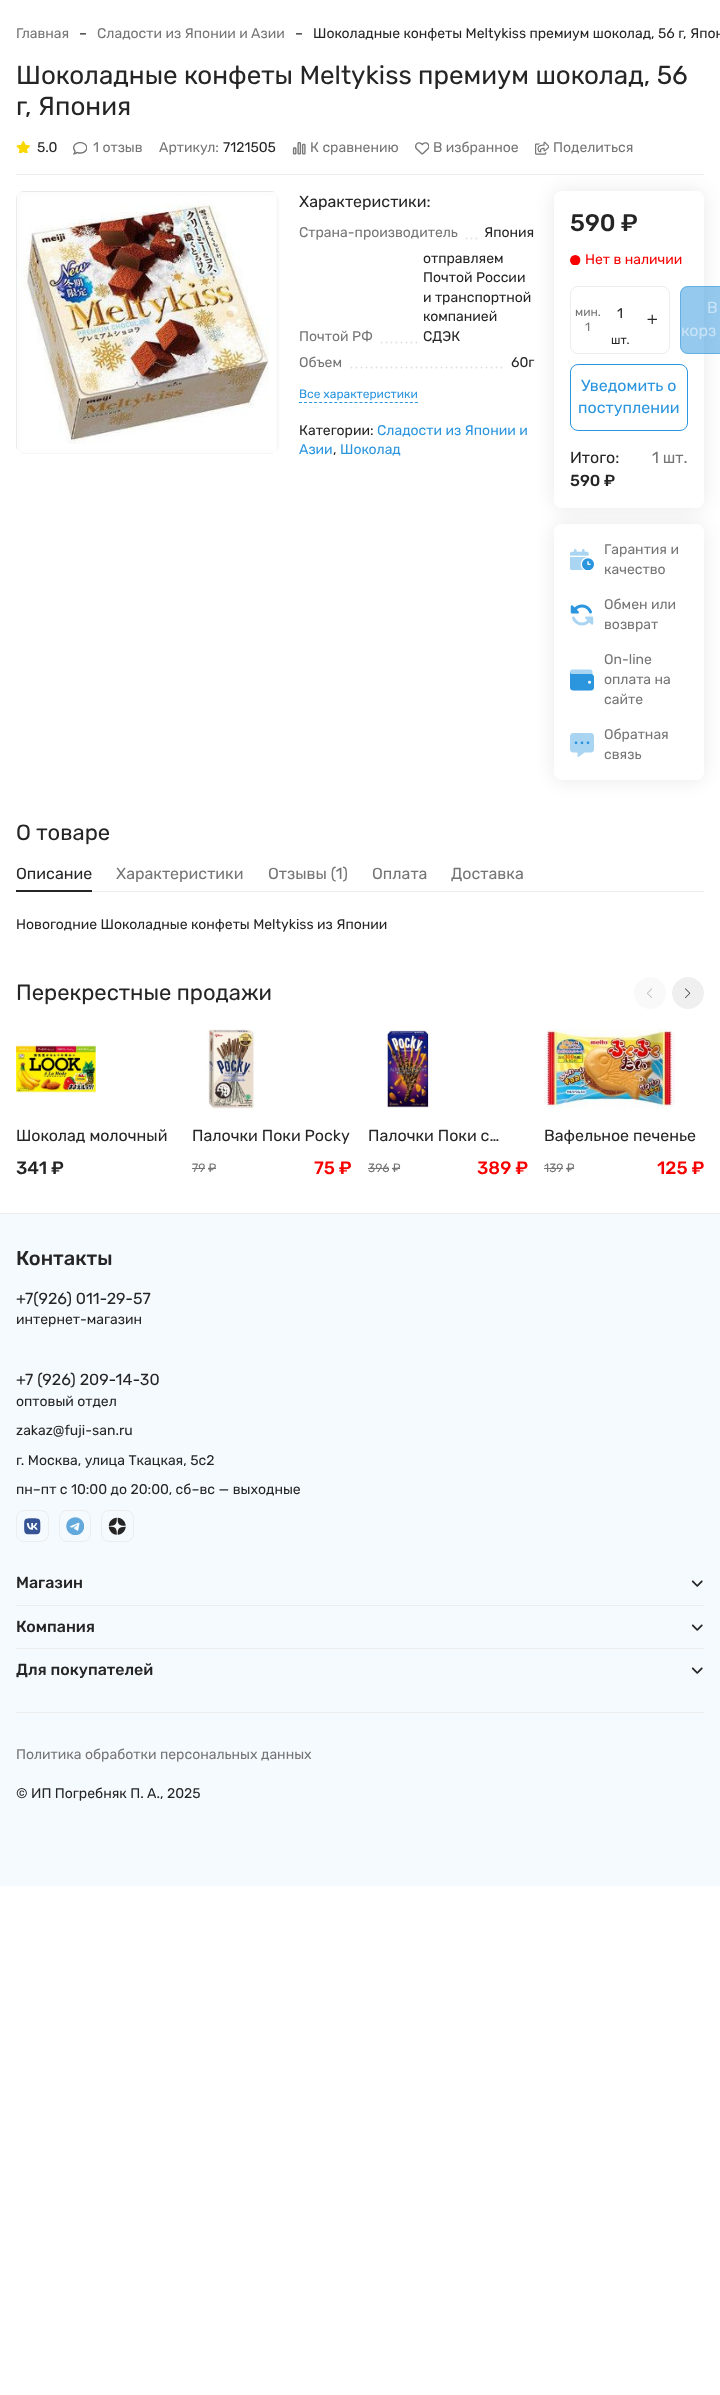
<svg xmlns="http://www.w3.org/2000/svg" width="720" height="2395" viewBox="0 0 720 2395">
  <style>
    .t1 { font: 14px Rubik; fill: #757575; }
    .t2 { font: 14px Rubik; fill: #252525; }
    .t3 { font: 26px Rubik; fill: #252525; }
    .t4 { font: 16px Rubik; fill: #252525; }
    .t5 { font: 12px Rubik; fill: #2b95de; }
    .t6 { font: 14px Rubik; fill: #2b95de; }
    .t7 { font: 500 24px Rubik; fill: #252525; }
    .t8 { font: 14px Rubik; fill: #f70000; }
    .t9 { font: 12px Rubik; fill: #757575; }
    .t10 { font: 12px Rubik; fill: #252525; }
    .t11 { font: 16px Rubik; fill: #c9e3f6; }
    .t12 { font: 16px Rubik; fill: #2b95de; }
    .t13 { font: 500 16px Rubik; fill: #252525; }
    .t14 { font: 16px Rubik; fill: #757575; }
    .t15 { font: 22px Rubik; fill: #252525; }
    .t16 { font: 500 18px Rubik; fill: #252525; }
    .t17 { font: 500 18px Rubik; fill: #f70000; }
    .t18 { font: 500 20px Rubik; fill: #252525; }
  </style>
  <defs>
    <clipPath id="clip1"><path d="M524 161H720V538H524ZM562 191H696C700.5 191 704 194.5 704 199V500C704 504.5 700.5 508 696 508H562C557.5 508 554 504.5 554 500V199C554 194.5 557.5 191 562 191Z" clip-rule="evenodd"/></clipPath>
    <clipPath id="clip2"><path d="M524 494H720V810H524ZM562 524H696C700.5 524 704 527.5 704 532V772C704 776.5 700.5 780 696 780H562C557.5 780 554 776.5 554 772V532C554 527.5 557.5 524 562 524Z" clip-rule="evenodd"/></clipPath>
  </defs>
  <rect width="100%" height="100%" fill="#fff"/>
  <text x="16" y="38" class="t1">Главная</text>
  <text x="79" y="38" class="t2">–</text>
  <text x="97" y="38" class="t1">Сладости из Японии и Азии</text>
  <text x="295" y="38" class="t2">–</text>
  <text x="313" y="38" class="t2">Шоколадные конфеты Meltykiss премиум шоколад, 56 г, Япон</text>
  <text x="16" y="84" class="t3">Шоколадные конфеты Meltykiss премиум шоколад, 56</text>
  <text x="16" y="115" class="t3">г, Япония</text>
  <rect x="16" y="174" width="688" height="1" fill="#ededed"/>
  <image x="16" y="141" width="14" height="12" href="images/1.png"/>
  <text x="37" y="152" class="t2">5.0</text>
  <image x="73" y="142" width="14" height="13" href="images/2.png"/>
  <text x="93" y="152" class="t1">1 отзыв</text>
  <text x="159" y="152" class="t1">Артикул:</text>
  <text x="223" y="152" class="t2">7121505</text>
  <image x="292" y="142" width="14" height="13" href="images/3.png"/>
  <text x="310" y="152" class="t1">К сравнению</text>
  <image x="415" y="142" width="14" height="13" href="images/4.png"/>
  <text x="433" y="152" class="t1">В избранное</text>
  <image x="535" y="141" width="14" height="14" href="images/5.png"/>
  <text x="553" y="152" class="t1">Поделиться</text>
  <image x="16" y="191" width="263" height="263" href="images/6.png"/>
  <text x="299" y="207" class="t4">Характеристики:</text>
  <path d="M301.5 238.5H476.7" fill="none" stroke="#dedede" stroke-width="1.8" stroke-linecap="round" stroke-dasharray="0 5"/>
  <rect x="300" y="237" width="163" height="3" fill="#fff"/>
  <text x="299" y="237" class="t1">Страна-производитель</text>
  <text x="484" y="237" class="t2">Япония</text>
  <path d="M301.5 342.5H416.7" fill="none" stroke="#dedede" stroke-width="1.8" stroke-linecap="round" stroke-dasharray="0 5"/>
  <rect x="300" y="341" width="78" height="3" fill="#fff"/>
  <text x="299" y="341" class="t1">Почтой РФ</text>
  <text x="423" y="263" class="t2">отправляем</text>
  <text x="423" y="282" class="t2">Почтой России</text>
  <text x="423" y="302" class="t2">и транспортной</text>
  <text x="423" y="321" class="t2">компанией</text>
  <text x="423" y="341" class="t2">СДЭК</text>
  <path d="M301.5 367.5H501.7" fill="none" stroke="#dedede" stroke-width="1.8" stroke-linecap="round" stroke-dasharray="0 5"/>
  <rect x="300" y="366" width="48" height="3" fill="#fff"/>
  <text x="299" y="367" class="t1">Объем</text>
  <text x="511" y="367" class="t2">60г</text>
  <text x="299" y="398" class="t5">Все характеристики</text>
  <path d="M299 402.5H418" fill="none" stroke="#2b95de" stroke-dasharray="3 2.04"/>
  <text x="299" y="435" class="t2">Категории:</text>
  <text x="377" y="435" class="t6">Сладости из Японии и</text>
  <text x="299" y="454" class="t6">Азии</text>
  <text x="333" y="454" class="t2">,</text>
  <text x="340" y="454" class="t6">Шоколад</text>
  <g clip-path="url(#clip1)">
    <rect x="554" y="191" width="150" height="317" rx="8" fill="#00000017" filter="blur(9.5px)"/>
  </g>
  <text x="570" y="231" class="t7">590 ₽</text>
  <image x="570" y="255" width="11" height="10" href="images/7.png"/>
  <text x="585" y="264" class="t8">Нет в наличии</text>
  <rect x="570.5" y="286.5" width="99" height="67" rx="7.5" fill="none" stroke="#ededed"/>
  <text x="575" y="316" class="t9">мин.</text>
  <text x="585" y="331" class="t9">1</text>
  <text x="617" y="318" class="t2">1</text>
  <image x="647" y="314" width="10" height="10" href="images/8.png"/>
  <text x="611" y="344" class="t10">шт.</text>
  <rect x="680" y="286" width="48" height="68" rx="8" fill="#2b95de80"/>
  <rect x="680.5" y="286.5" width="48" height="67" rx="7.5" fill="none" stroke="#2b95de80"/>
  <text x="707" y="313" class="t11">В</text>
  <text x="681" y="336" class="t11">корз</text>
  <rect x="570.5" y="364.5" width="117" height="66" rx="7.5" fill="none" stroke="#2b95de"/>
  <text x="581" y="391" class="t12">Уведомить о</text>
  <text x="578" y="413" class="t12">поступлении</text>
  <text x="570" y="463" class="t4">Итого:</text>
  <text x="570" y="486" class="t13">590 ₽</text>
  <text x="652" y="463" class="t14">1 шт.</text>
  <g clip-path="url(#clip2)">
    <rect x="554" y="524" width="150" height="256" rx="8" fill="#00000017" filter="blur(9.5px)"/>
  </g>
  <image x="570" y="549" width="24" height="21" href="images/9.png"/>
  <text x="604" y="554" class="t1">Гарантия и</text>
  <text x="604" y="574" class="t1">качество</text>
  <image x="570" y="604" width="24" height="22" href="images/10.png"/>
  <text x="604" y="609" class="t1">Обмен или</text>
  <text x="604" y="629" class="t1">возврат</text>
  <image x="570" y="669" width="24" height="22" href="images/11.png"/>
  <text x="604" y="664" class="t1">On-line</text>
  <text x="604" y="684" class="t1">оплата на</text>
  <text x="604" y="704" class="t1">сайте</text>
  <image x="570" y="733" width="24" height="24" href="images/12.png"/>
  <text x="604" y="739" class="t1">Обратная</text>
  <text x="604" y="759" class="t1">связь</text>
  <rect x="92" y="891" width="612" height="1" fill="#ededed"/>
  <text x="16" y="840" class="t15">О товаре</text>
  <text x="16" y="879" class="t4">Описание</text>
  <rect x="16" y="890" width="76" height="2" fill="#252525"/>
  <text x="116" y="879" class="t14">Характеристики</text>
  <text x="268" y="879" class="t14">Отзывы (1)</text>
  <text x="372" y="879" class="t14">Оплата</text>
  <text x="451" y="879" class="t14">Доставка</text>
  <text x="16" y="929" class="t2">Новогодние Шоколадные конфеты Meltykiss из Японии</text>
  <text x="16" y="1000" class="t15">Перекрестные продажи</text>
  <circle cx="650" cy="993" r="16" fill="#f9f9f9"/>
  <image x="647" y="988" width="5" height="10" href="images/13.png"/>
  <circle cx="688" cy="993" r="15.5" fill="#efefef" stroke="#efefef"/>
  <image x="685" y="988" width="6" height="11" href="images/14.png"/>
  <image x="16" y="1042" width="80" height="51" href="images/15.png"/>
  <text x="16" y="1141" class="t4">Шоколад молочный</text>
  <text x="16" y="1174" class="t16">341 ₽</text>
  <image x="207" y="1029" width="48" height="80" href="images/16.png"/>
  <text x="192" y="1141" class="t4">Палочки Поки Pocky</text>
  <text x="192" y="1172" class="t9">79 ₽</text>
  <rect x="192" y="1168" width="13" height="1" fill="#757575"/>
  <rect x="208" y="1168" width="8" height="1" fill="#757575"/>
  <text x="314" y="1174" class="t17">75 ₽</text>
  <image x="387" y="1029" width="45" height="80" href="images/17.png"/>
  <text x="368" y="1141" class="t4">Палочки Поки с…</text>
  <text x="368" y="1172" class="t9">396 ₽</text>
  <rect x="368" y="1168" width="21" height="1" fill="#757575"/>
  <rect x="392" y="1168" width="8" height="1" fill="#757575"/>
  <text x="477" y="1174" class="t17">389 ₽</text>
  <image x="544" y="1029" width="131" height="80" href="images/18.png"/>
  <text x="544" y="1141" class="t4">Вафельное печенье</text>
  <text x="544" y="1172" class="t9">139 ₽</text>
  <rect x="544" y="1168" width="19" height="1" fill="#757575"/>
  <rect x="566" y="1168" width="8" height="1" fill="#757575"/>
  <text x="657" y="1174" class="t17">125 ₽</text>
  <rect x="0" y="1214" width="720" height="672" fill="#f5fafe"/>
  <rect x="0" y="1213" width="720" height="1" fill="#ededed"/>
  <text x="16" y="1265" class="t18">Контакты</text>
  <text x="16" y="1304" class="t4">+7(926) 011-29-57</text>
  <text x="16" y="1324" class="t2">интернет-магазин</text>
  <text x="16" y="1385" class="t4">+7 (926) 209-14-30</text>
  <text x="16" y="1406" class="t2">оптовый отдел</text>
  <text x="16" y="1435" class="t2">zakaz@fuji-san.ru</text>
  <text x="16" y="1465" class="t2">г. Москва, улица Ткацкая, 5с2</text>
  <text x="16" y="1494" class="t2">пн–пт с 10:00 до 20:00, сб–вс — выходные</text>
  <rect x="16.5" y="1510.5" width="32" height="31" rx="7.5" fill="none" stroke="#ededed"/>
  <image x="24" y="1518" width="17" height="17" href="images/19.png"/>
  <rect x="59.5" y="1510.5" width="31" height="31" rx="7.5" fill="none" stroke="#ededed"/>
  <image x="66" y="1517" width="18" height="18" href="images/20.png"/>
  <rect x="101.5" y="1510.5" width="32" height="31" rx="7.5" fill="none" stroke="#ededed"/>
  <image x="108" y="1517" width="18" height="18" href="images/21.png"/>
  <text x="16" y="1588" class="t13">Магазин</text>
  <image x="691" y="1580" width="12" height="7" href="images/22.png"/>
  <rect x="16" y="1605" width="688" height="1" fill="#ededed"/>
  <text x="16" y="1632" class="t13">Компания</text>
  <image x="691" y="1624" width="12" height="7" href="images/22.png"/>
  <rect x="16" y="1648" width="688" height="1" fill="#ededed"/>
  <text x="16" y="1675" class="t13">Для покупателей</text>
  <image x="691" y="1667" width="12" height="7" href="images/22.png"/>
  <rect x="16" y="1712" width="688" height="1" fill="#ededed"/>
  <text x="16" y="1759" class="t1">Политика обработки персональных данных</text>
  <text x="16" y="1798" class="t2">© ИП Погребняк П. А., 2025</text>
</svg>
